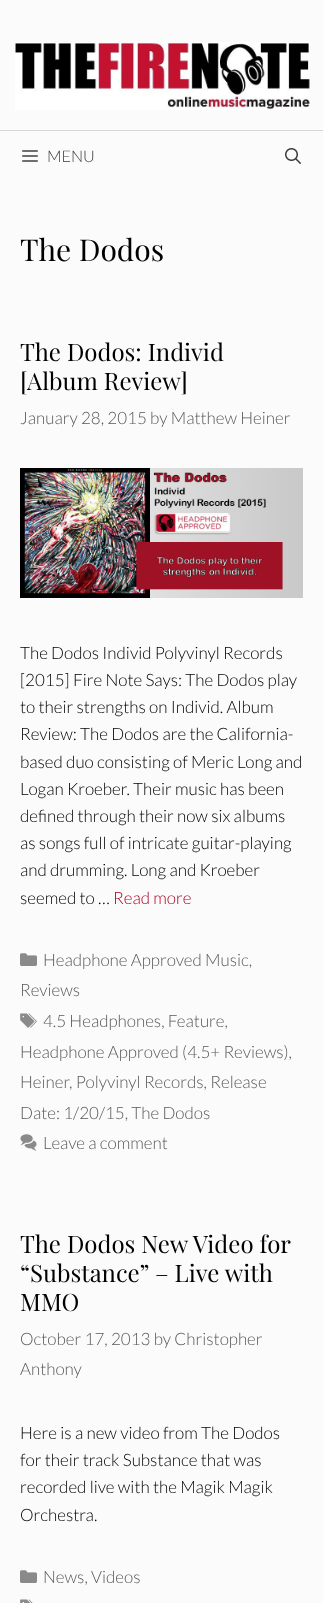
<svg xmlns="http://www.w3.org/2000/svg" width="323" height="1603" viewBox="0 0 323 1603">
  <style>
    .t1 { font: 300 16px Lato; fill: #3a3a3a; }
    .t2 { font: 30px Playfair Display; fill: #000; }
    .t3 { font: 24px Playfair Display; fill: #000; }
    .t4 { font: 300 17px Lato; fill: #595959; }
    .t5 { font: 300 17px Lato; fill: #000; }
    .t6 { font: 300 17px Lato; fill: #aa0023; }
  </style>
  <rect width="100%" height="100%" fill="#fbfbfb"/>
  <image x="15" y="42" width="295" height="68" href="images/1.png"/>
  <rect x="0" y="130" width="323" height="1" fill="#d4d7d8"/>
  <image x="22" y="150" width="16" height="12" href="images/2.png"/>
  <text x="47" y="162" class="t1">MENU</text>
  <image x="285" y="148" width="16" height="16" href="images/3.png"/>
  <text x="20" y="261" class="t2">The Dodos</text>
  <text x="20" y="361" class="t3">The Dodos: Individ</text>
  <text x="20" y="390" class="t3">[Album Review]</text>
  <text x="20" y="424" class="t4">January 28, 2015 by Matthew Heiner</text>
  <image x="20" y="468" width="283" height="130" href="images/4.png"/>
  <text x="20" y="659" class="t5">The Dodos Individ Polyvinyl Records</text>
  <text x="20" y="686" class="t5">[2015] Fire Note Says: The Dodos play</text>
  <text x="20" y="713" class="t5">to their strengths on Individ. Album</text>
  <text x="20" y="740" class="t5">Review: The Dodos are the California-</text>
  <text x="20" y="768" class="t5">based duo consisting of Meric Long and</text>
  <text x="20" y="795" class="t5">Logan Kroeber. Their music has been</text>
  <text x="20" y="822" class="t5">defined through their now six albums</text>
  <text x="20" y="849" class="t5">as songs full of intricate guitar-playing</text>
  <text x="20" y="876" class="t5">and drumming. Long and Kroeber</text>
  <text x="20" y="904" class="t5">seemed to …</text>
  <text x="113" y="904" class="t6">Read more</text>
  <image x="20" y="953" width="17" height="13" href="images/5.png"/>
  <text x="43" y="966" class="t4">Headphone Approved Music,</text>
  <text x="20" y="996" class="t4">Reviews</text>
  <image x="20" y="1013" width="17" height="15" href="images/6.png"/>
  <text x="43" y="1027" class="t4">4.5 Headphones, Feature,</text>
  <text x="20" y="1058" class="t4">Headphone Approved (4.5+ Reviews),</text>
  <text x="20" y="1088" class="t4">Heiner</text>
  <text x="69" y="1088" class="t4">, Polyvinyl Records, Release</text>
  <text x="20" y="1119" class="t4">Date: 1/20/15, The Dodos</text>
  <image x="20" y="1134" width="17" height="17" href="images/7.png"/>
  <text x="43" y="1149" class="t4">Leave a comment</text>
  <text x="20" y="1253" class="t3">The Dodos New Video for</text>
  <text x="20" y="1282" class="t3">“Substance” – Live with</text>
  <text x="20" y="1311" class="t3">MMO</text>
  <text x="20" y="1345" class="t4">October 17, 2013 by Christopher</text>
  <text x="20" y="1375" class="t4">Anthony</text>
  <text x="20" y="1439" class="t5">Here is a new video from The Dodos</text>
  <text x="20" y="1466" class="t5">for their track Substance that was</text>
  <text x="20" y="1493" class="t5">recorded live with the Magik Magik</text>
  <text x="20" y="1521" class="t5">Orchestra.</text>
  <image x="20" y="1570" width="17" height="13" href="images/5.png"/>
  <text x="43" y="1583" class="t4">News, Videos</text>
  <image x="20" y="1599" width="13" height="4" href="images/8.png"/>
</svg>
